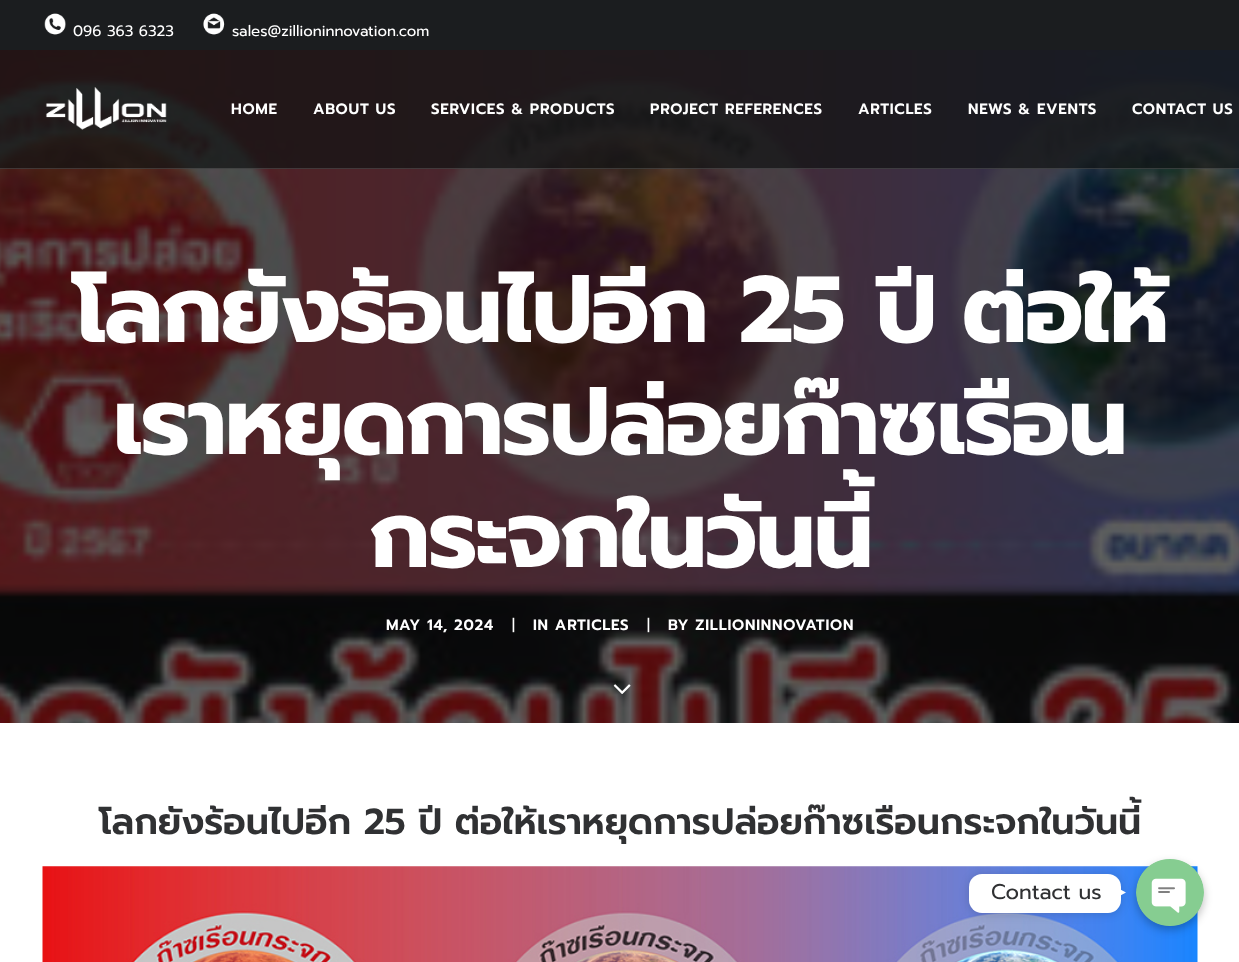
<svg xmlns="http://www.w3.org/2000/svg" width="1239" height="962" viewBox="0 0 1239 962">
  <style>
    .t1 { font: 15px Prompt; fill: #fff; }
    .t2 { font: 600 15px Prompt; letter-spacing: 0.75px; fill: #fff; }
    .t3 { font: bold 93.75px Prompt; letter-spacing: -1.9px; fill: #fff; }
    .t4 { font: 15px Prompt; letter-spacing: 0.75px; fill: #fff; }
    .t5 { font: 600 36.25px Prompt; fill: #303133; }
    .t6 { font: 21.25px Prompt; fill: #303133; }
  </style>
  <rect width="100%" height="100%" fill="#fff"/>
  <rect x="0" y="0" width="1239" height="50" fill="#1b1d1f"/>
  <image x="44" y="13" width="22" height="22" href="images/1.png"/>
  <text x="73" y="36" class="t1">096 363 6323</text>
  <image x="203" y="13" width="22" height="22" href="images/2.png"/>
  <text x="232" y="36" class="t1">sales@zillioninnovation.com</text>
  <image x="0" y="50" width="1239" height="673" href="images/4.png"/>
  <rect x="0" y="50" width="1239" height="119" fill="#101213b3"/>
  <rect x="0" y="168" width="1239" height="1" fill="#ffffff26"/>
  <image x="45" y="87" width="122" height="43" href="images/3.png"/>
  <text x="231" y="114" class="t2">HOME</text>
  <text x="313" y="114" class="t2">ABOUT US</text>
  <text x="431" y="114" class="t2">SERVICES &amp; PRODUCTS</text>
  <text x="650" y="114" class="t2">PROJECT REFERENCES</text>
  <text x="858" y="114" class="t2">ARTICLES</text>
  <text x="968" y="114" class="t2">NEWS &amp; EVENTS</text>
  <text x="1132" y="114" class="t2">CONTACT US</text>
  <text x="73" y="342" word-spacing="2" class="t3">โลกยังร้อนไปอีก 25 ปี</text>
  <text x="962" y="342" class="t3">ต่อให้</text>
  <text x="113" y="454" class="t3">เราหยุดการปล่อยก๊าซเรือน</text>
  <text x="369" y="567" class="t3">กระจกในวันนี้</text>
  <text x="386" y="630" class="t2">MAY 14, 2024</text>
  <text x="512" y="630" class="t4">|</text>
  <text x="533" y="630" class="t2">IN ARTICLES</text>
  <text x="647" y="630" class="t4">|</text>
  <text x="668" y="630" class="t2">BY ZILLIONINNOVATION</text>
  <image x="613" y="684" width="18" height="10" href="images/5.png"/>
  <text x="99" y="834" class="t5">โลกยังร้อนไปอีก 25 ปี ต่อให้เราหยุดการปล่อยก๊าซเรือนกระจกในวันนี้</text>
  <image x="42" y="866" width="1156" height="96" href="images/6.png"/>
  <rect x="1136" y="863" width="68" height="67" rx="33.5" fill="#00000040" filter="blur(4px)"/>
  <image x="1136" y="859" width="68" height="67" href="images/7.png"/>
  <rect x="969" y="875" width="152" height="39" rx="13" fill="#00000026" filter="blur(5px)"/>
  <rect x="969" y="874" width="152" height="39" rx="13" fill="#fff"/>
  <text x="991" y="899" class="t6">Contact us</text>
  <path d="M1114 899V886L1126 892.5Z" fill="#fff"/>
</svg>
